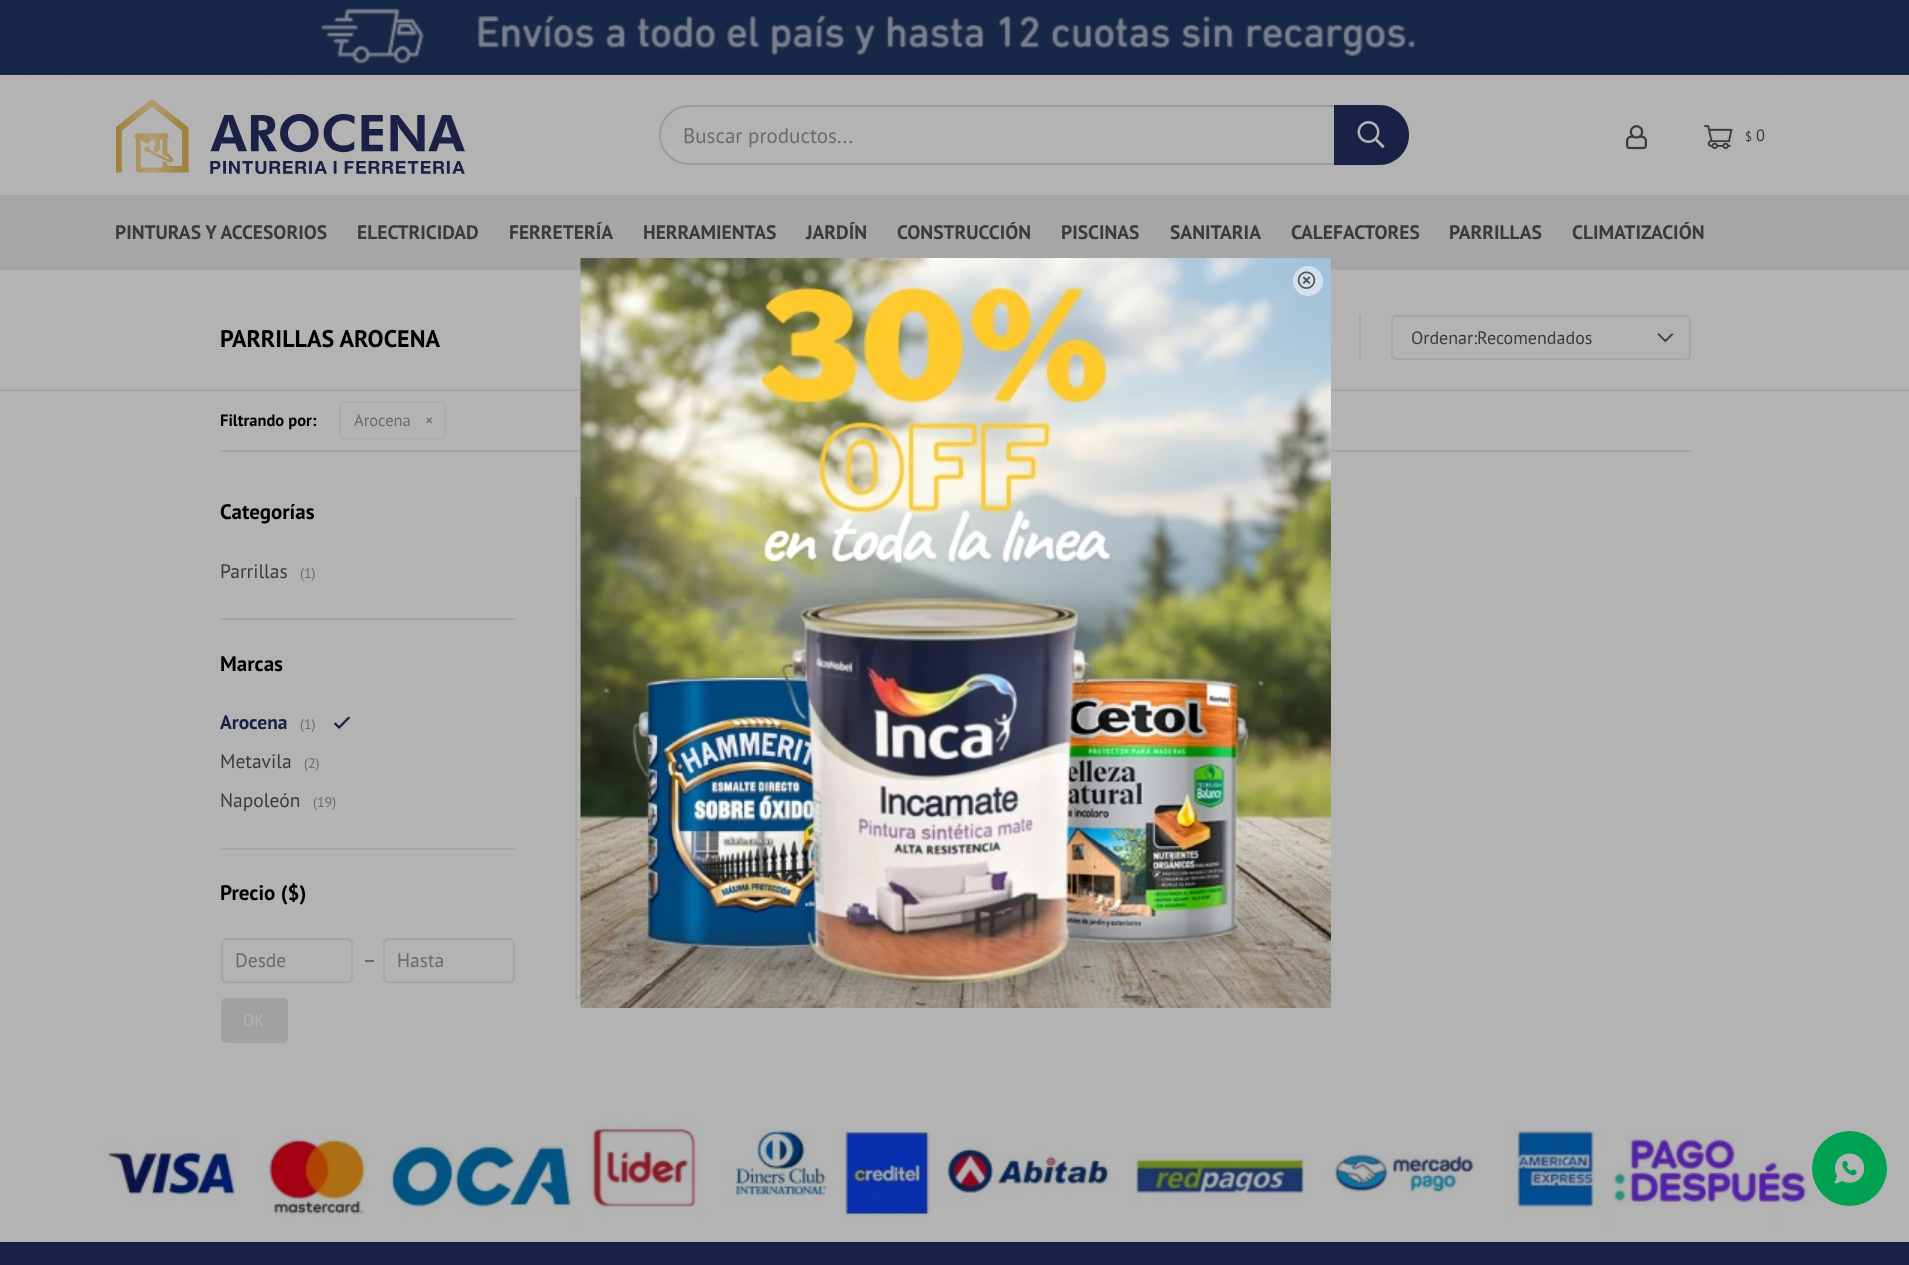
<svg xmlns="http://www.w3.org/2000/svg" width="1909" height="1265" viewBox="0 0 1909 1265">
  <style>
    .t1 { font: 21px PT Sans; fill: #6b6b6b; }
    .t2 { font: 13px PT Sans; fill: #3b3b3b; }
    .t3 { font: 16.5px PT Sans; fill: #3b3b3b; }
    .t4 { font: bold 19.5px PT Sans; fill: #3b3b3b; }
    .t5 { font: bold 24px PT Sans; fill: #000; }
    .t6 { font: 18px PT Sans; fill: #3b3b3b; }
    .t7 { font: bold 16.5px PT Sans; fill: #000; }
    .t8 { font: 16.5px PT Sans; fill: #6b6b6b; }
    .t9 { font: bold 21px PT Sans; fill: #000; }
    .t10 { font: 19.5px PT Sans; fill: #3b3b3b; }
    .t11 { font: 14px PT Sans; fill: #6b6b6b; }
    .t12 { font: bold 19.5px PT Sans; fill: #1b2046; }
    .t13 { font: 19.5px PT Sans; fill: #6b6b6b; }
    .t14 { font: 16.5px PT Sans; fill: #b3b3b3; }
  </style>
  <rect width="100%" height="100%" fill="#b3b3b3"/>
  <image x="0" y="0" width="1909" height="75" href="images/1.png"/>
  <image x="116" y="99" width="349" height="75" href="images/2.png"/>
  <rect x="660" y="106" width="748" height="58" rx="29" fill="none" stroke="#9b9b9b" stroke-width="2"/>
  <text x="683" y="143" class="t1">Buscar productos...</text>
  <path d="M1334 105H1379C1395.5 105 1409 118.5 1409 135C1409 151.5 1395.5 165 1379 165H1334Z" fill="#1b2046"/>
  <image x="1357" y="121" width="28" height="27" href="images/3.png"/>
  <image x="1626" y="125" width="21" height="25" href="images/4.png"/>
  <image x="1704" y="125" width="29" height="25" href="images/5.png"/>
  <text x="1745" y="141" class="t2">$</text>
  <text x="1756" y="141" class="t3">0</text>
  <rect x="0" y="195" width="1909" height="75" fill="#a6a6a6"/>
  <text x="115" y="239" class="t4">PINTURAS Y ACCESORIOS</text>
  <text x="357" y="239" class="t4">ELECTRICIDAD</text>
  <text x="509" y="239" class="t4">FERRETERÍA</text>
  <text x="643" y="239" class="t4">HERRAMIENTAS</text>
  <text x="806" y="239" class="t4">JARDÍN</text>
  <text x="897" y="239" class="t4">CONSTRUCCIÓN</text>
  <text x="1061" y="239" class="t4">PISCINAS</text>
  <text x="1170" y="239" class="t4">SANITARIA</text>
  <text x="1291" y="239" class="t4">CALEFACTORES</text>
  <text x="1449" y="239" class="t4">PARRILLAS</text>
  <text x="1572" y="239" class="t4">CLIMATIZACIÓN</text>
  <text x="220" y="347" class="t5">PARRILLAS AROCENA</text>
  <rect x="1359" y="315" width="2" height="45" fill="#a6a6a6"/>
  <image x="1657" y="333" width="17" height="10" href="images/6.png"/>
  <rect x="1392" y="316" width="298" height="43" rx="4" fill="none" stroke="#a6a6a6" stroke-width="2"/>
  <text x="1411" y="344" class="t6">Ordenar:Recomendados</text>
  <rect x="0" y="389" width="1909" height="2" fill="#a6a6a6"/>
  <rect x="221" y="450" width="1470" height="2" fill="#a6a6a6"/>
  <text x="220" y="426" class="t7">Filtrando por:</text>
  <rect x="340" y="402" width="105" height="37" rx="4" fill="none" stroke="#acacac" stroke-width="2"/>
  <text x="354" y="426" class="t8">Arocena</text>
  <text x="425" y="426" class="t8">×</text>
  <text x="220" y="519" class="t9">Categorías</text>
  <text x="220" y="578" class="t10">Parrillas</text>
  <text x="300" y="578" class="t11">(1)</text>
  <rect x="221" y="618" width="294" height="2" fill="#a6a6a6"/>
  <text x="220" y="671" class="t9">Marcas</text>
  <text x="220" y="729" class="t12">Arocena</text>
  <text x="300" y="729" class="t11">(1)</text>
  <image x="334" y="716" width="16" height="13" href="images/7.png"/>
  <text x="220" y="768" class="t10">Metavila</text>
  <text x="304" y="768" class="t11">(2)</text>
  <text x="220" y="807" class="t10">Napoleón</text>
  <text x="313" y="807" class="t11">(19)</text>
  <rect x="221" y="848" width="294" height="2" fill="#a6a6a6"/>
  <text x="220" y="900" class="t9">Precio ($)</text>
  <rect x="222" y="939" width="130" height="43" rx="4" fill="none" stroke="#a6a6a6" stroke-width="2"/>
  <text x="235" y="967" class="t13">Desde</text>
  <rect x="365" y="960" width="9" height="2" fill="#6b6b6b"/>
  <rect x="384" y="939" width="130" height="43" rx="4" fill="none" stroke="#a6a6a6" stroke-width="2"/>
  <text x="397" y="967" class="t13">Hasta</text>
  <rect x="221" y="998" width="67" height="45" rx="5" fill="#a1a1a1"/>
  <text x="243" y="1026" class="t14">OK</text>
  <rect x="575" y="839" width="6" height="2" fill="#a6a6a6"/>
  <rect x="576" y="498" width="338" height="500" fill="none" stroke="#a6a6a6" stroke-width="2"/>
  <image x="0" y="1107" width="1909" height="135" href="images/8.png"/>
  <rect x="0" y="1242" width="1909" height="23" fill="#1b2046"/>
  <image x="580" y="258" width="751" height="750" href="images/9.png"/>
  <circle cx="1308" cy="281" r="15" fill="#ffffff80"/>
  <image x="1297" y="271" width="19" height="18" href="images/10.png"/>
  <circle cx="1849.5" cy="1168.5" r="37.5" fill="#01a152"/>
  <image x="1834" y="1153" width="31" height="31" href="images/11.png"/>
</svg>
